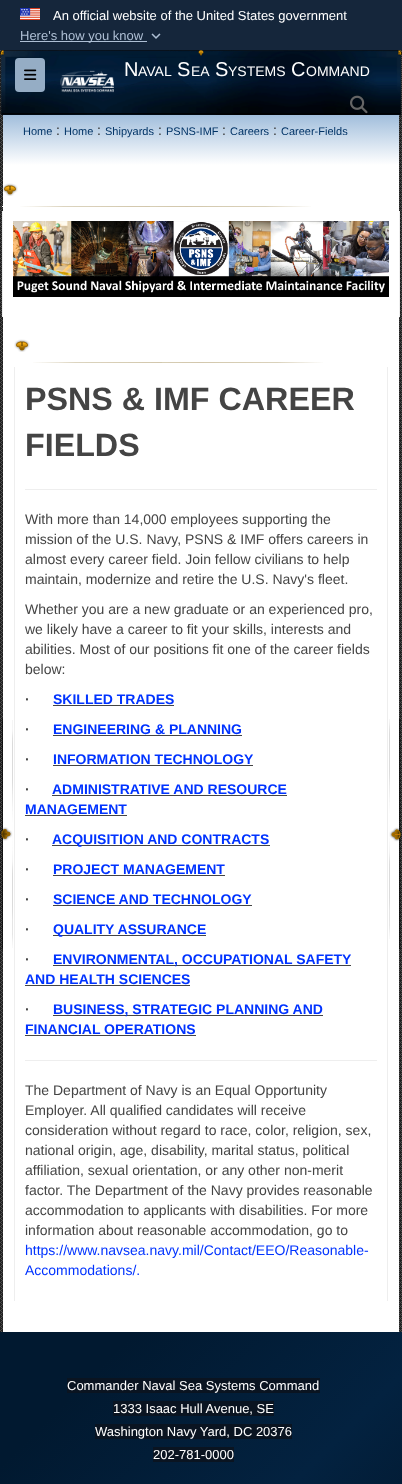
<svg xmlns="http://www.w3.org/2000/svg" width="402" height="1484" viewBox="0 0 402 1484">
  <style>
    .t1 { font: 13px Liberation Sans; fill: #fff; }
    .t2 { font: 13px Liberation Sans; fill: #aebfd4; }
    .t3 { font: 20px Liberation Sans; fill: #fff; }
    .t4 { font: 14px Liberation Sans; fill: #fff; }
    .t5 { font: 11px Liberation Sans; fill: #036; }
    .t6 { font: 14px Liberation Sans; fill: #333; }
    .t7 { font: bold 32.25px Liberation Sans; fill: #444; }
    .t8 { font: 14px Liberation Sans; fill: #444; }
    .t9 { font: bold 14px Liberation Sans; fill: #444; }
    .t10 { font: bold 14px Liberation Sans; fill: #03f; }
    .t11 { font: 14px Liberation Sans; fill: #03f; }
  </style>
  <defs>
    <linearGradient id="g1" gradientUnits="userSpaceOnUse" x1="201" y1="115" x2="201" y2="165"><stop offset="0" stop-color="#a1bedc"/><stop offset="1" stop-color="#fff"/></linearGradient>
    <linearGradient id="g2" gradientUnits="userSpaceOnUse" x1="-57" y1="1389" x2="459" y2="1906"><stop offset="0" stop-color="#011930"/><stop offset="0.13" stop-color="#011930"/><stop offset="0.43" stop-color="#032240"/><stop offset="0.79" stop-color="#011122"/><stop offset="1" stop-color="#000b16"/></linearGradient>
  </defs>
  <rect width="100%" height="100%" fill="#fff"/>
  <image x="0" y="50" width="402" height="1282" href="images/1.png"/>
  <rect x="0" y="0" width="402" height="50" fill="#15263b"/>
  <image x="20" y="8" width="20" height="12" href="images/2.png"/>
  <text x="53" y="20" class="t1">An official website of the United States government</text>
  <rect x="20" y="41" width="127" height="1" fill="#aebfd4"/>
  <text x="20" y="40" class="t2">Here's how you know</text>
  <image x="151" y="33" width="10" height="6" href="images/3.png"/>
  <image x="0" y="50" width="402" height="65" href="images/4.png"/>
  <rect x="15" y="58" width="30" height="34" rx="4" fill="#95adc5"/>
  <image x="24" y="69" width="13" height="11" href="images/5.png"/>
  <image x="60" y="70" width="54" height="23" href="images/6.png"/>
  <text x="124" y="76" class="t3">N</text>
  <text x="138" y="76" class="t4">AVAL</text>
  <text x="177" y="76" class="t3">S</text>
  <text x="191" y="76" class="t4">EA</text>
  <text x="215" y="76" class="t3">S</text>
  <text x="228" y="76" class="t4">YSTEMS</text>
  <text x="291" y="76" class="t3">C</text>
  <text x="306" y="76" class="t4">OMMAND</text>
  <image x="350" y="95" width="18" height="19" href="images/7.png"/>
  <rect x="3" y="165" width="396" height="1167" fill="#fff"/>
  <rect x="3" y="115" width="396" height="50" fill="url(#g1)"/>
  <text x="23" y="135" class="t5">Home</text>
  <text x="56" y="135" class="t6">:</text>
  <text x="64" y="135" class="t5">Home</text>
  <text x="97" y="135" class="t6">:</text>
  <text x="105" y="135" class="t5">Shipyards</text>
  <text x="158" y="135" class="t6">:</text>
  <text x="166" y="135" class="t5">PSNS-IMF</text>
  <text x="222" y="135" class="t6">:</text>
  <text x="230" y="135" class="t5">Careers</text>
  <text x="273" y="135" class="t6">:</text>
  <text x="281" y="135" class="t5">Career-Fields</text>
  <image x="2" y="206" width="309" height="1" href="images/8.png"/>
  <image x="3" y="183" width="15" height="13" href="images/9.png"/>
  <rect x="399" y="211" width="1" height="106" fill="#eee"/>
  <rect x="2" y="211" width="1" height="106" fill="#eee"/>
  <image x="13" y="221" width="376" height="76" href="images/10.png"/>
  <image x="0" y="719" width="402" height="230" href="images/11.png"/>
  <image x="33" y="362" width="290" height="1" href="images/12.png"/>
  <image x="14" y="339" width="16" height="13" href="images/13.png"/>
  <rect x="387" y="367" width="1" height="934" fill="#eee"/>
  <rect x="14" y="367" width="1" height="934" fill="#eee"/>
  <text x="25" y="410" class="t7">PSNS &amp; IMF CAREER</text>
  <text x="25" y="456" class="t7">FIELDS</text>
  <rect x="25" y="489" width="352" height="1" fill="#eee"/>
  <text x="25" y="524" class="t8">With more than 14,000 employees supporting the</text>
  <text x="25" y="544" class="t8">mission of the U.S. Navy, PSNS &amp; IMF offers careers in</text>
  <text x="25" y="564" class="t8">almost every career field. Join fellow civilians to help</text>
  <text x="25" y="584" class="t8">maintain, modernize and retire the U.S. Navy's fleet.</text>
  <text x="25" y="614" class="t8">Whether you are a new graduate or an experienced pro,</text>
  <text x="25" y="634" class="t8">we likely have a career to fit your skills, interests and</text>
  <text x="25" y="654" class="t8">abilities. Most of our positions fit one of the career fields</text>
  <text x="25" y="674" class="t8">below:</text>
  <text x="25" y="704" class="t9">·</text>
  <text x="53" y="704" class="t10">SKILLED TRADES</text>
  <rect x="53" y="705" width="121" height="1" fill="#444"/>
  <text x="25" y="734" class="t9">·</text>
  <text x="53" y="734" class="t10">ENGINEERING &amp; PLANNING</text>
  <rect x="53" y="735" width="189" height="1" fill="#444"/>
  <text x="25" y="764" class="t9">·</text>
  <text x="53" y="764" class="t10">INFORMATION TECHNOLOGY</text>
  <rect x="53" y="765" width="200" height="1" fill="#444"/>
  <text x="25" y="794" class="t9">·</text>
  <text x="52" y="794" class="t10">ADMINISTRATIVE AND RESOURCE</text>
  <rect x="52" y="795" width="235" height="1" fill="#444"/>
  <text x="25" y="814" class="t10">MANAGEMENT</text>
  <rect x="25" y="815" width="102" height="1" fill="#444"/>
  <text x="25" y="844" class="t9">·</text>
  <rect x="52" y="845" width="218" height="1" fill="#444"/>
  <text x="52" y="844" class="t10">ACQUISITION AND CONTRACTS</text>
  <text x="25" y="874" class="t9">·</text>
  <text x="53" y="874" class="t10">PROJECT MANAGEMENT</text>
  <rect x="53" y="875" width="172" height="1" fill="#444"/>
  <text x="25" y="904" class="t9">·</text>
  <text x="53" y="904" class="t10">SCIENCE AND TECHNOLOGY</text>
  <rect x="53" y="905" width="199" height="1" fill="#444"/>
  <text x="25" y="934" class="t9">·</text>
  <rect x="53" y="935" width="153" height="1" fill="#444"/>
  <text x="53" y="934" class="t10">QUALITY ASSURANCE</text>
  <text x="25" y="964" class="t9">·</text>
  <rect x="53" y="965" width="298" height="1" fill="#444"/>
  <text x="53" y="964" class="t10">ENVIRONMENTAL, OCCUPATIONAL SAFETY</text>
  <text x="25" y="984" class="t10">AND HEALTH SCIENCES</text>
  <rect x="25" y="985" width="165" height="1" fill="#444"/>
  <text x="25" y="1014" class="t9">·</text>
  <rect x="53" y="1015" width="270" height="1" fill="#444"/>
  <text x="53" y="1014" class="t10">BUSINESS, STRATEGIC PLANNING AND</text>
  <text x="25" y="1034" class="t10">FINANCIAL OPERATIONS</text>
  <rect x="25" y="1035" width="171" height="1" fill="#444"/>
  <rect x="25" y="1060" width="352" height="1" fill="#eee"/>
  <text x="25" y="1095" class="t8">The Department of Navy is an Equal Opportunity</text>
  <text x="25" y="1115" class="t8">Employer. All qualified candidates will receive</text>
  <text x="25" y="1135" class="t8">consideration without regard to race, color, religion, sex,</text>
  <text x="25" y="1155" class="t8">national origin, age, disability, marital status, political</text>
  <text x="25" y="1175" class="t8">affiliation, sexual orientation, or any other non-merit</text>
  <text x="25" y="1195" class="t8">factor. The Department of the Navy provides reasonable</text>
  <text x="25" y="1215" class="t8">accommodation to applicants with disabilities. For more</text>
  <text x="25" y="1235" class="t8">information about reasonable accommodation, go to</text>
  <text x="25" y="1255" class="t11">https://www.navsea.navy.mil/Contact/EEO/Reasonable-</text>
  <text x="25" y="1275" class="t11">Accommodations/.</text>
  <rect x="0" y="1332" width="402" height="152" fill="url(#g2)"/>
  <rect x="67" y="1378" width="253" height="15" fill="#0a1421"/>
  <text x="67" y="1390" class="t1">Commander Naval Sea Systems Command</text>
  <rect x="113" y="1401" width="161" height="15" fill="#0a1421"/>
  <text x="113" y="1413" class="t1">1333 Isaac Hull Avenue, SE</text>
  <rect x="95" y="1424" width="197" height="15" fill="#0a1421"/>
  <text x="95" y="1436" class="t1">Washington Navy Yard, DC 20376</text>
  <rect x="153" y="1447" width="81" height="15" fill="#0a1421"/>
  <text x="153" y="1459" class="t1">202-781-0000</text>
</svg>
